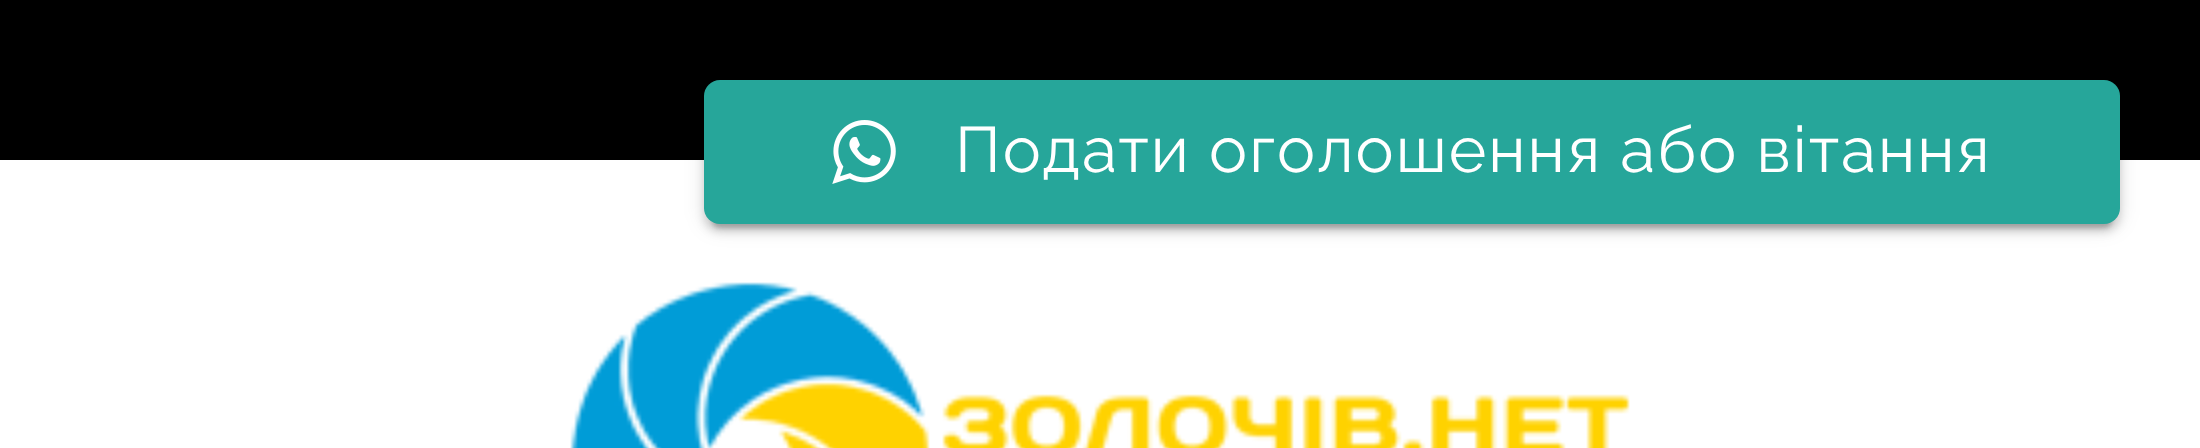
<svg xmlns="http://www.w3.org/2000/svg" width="2200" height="448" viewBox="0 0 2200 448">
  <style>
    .t1 { font: 64px Raleway; letter-spacing: 2px; fill: #fff; }
  </style>
  <rect width="100%" height="100%" fill="#fff"/>
  <rect x="0" y="0" width="2200" height="160" fill="#000"/>
  <image x="570" y="282" width="1060" height="166" href="images/1.png"/>
  <rect x="712" y="100" width="1400" height="128" rx="8" fill="#00000033" filter="blur(2px)"/>
  <rect x="704" y="84" width="1416" height="144" rx="16" fill="#0000001f" filter="blur(10px)"/>
  <rect x="704" y="88" width="1416" height="144" rx="16" fill="#00000024" filter="blur(4px)"/>
  <rect x="704" y="80" width="1416" height="144" rx="16" fill="#26a69a"/>
  <image x="832" y="120" width="64" height="64" href="images/2.png"/>
  <text x="955" y="172" class="t1">Подати оголошення або вітання</text>
</svg>
